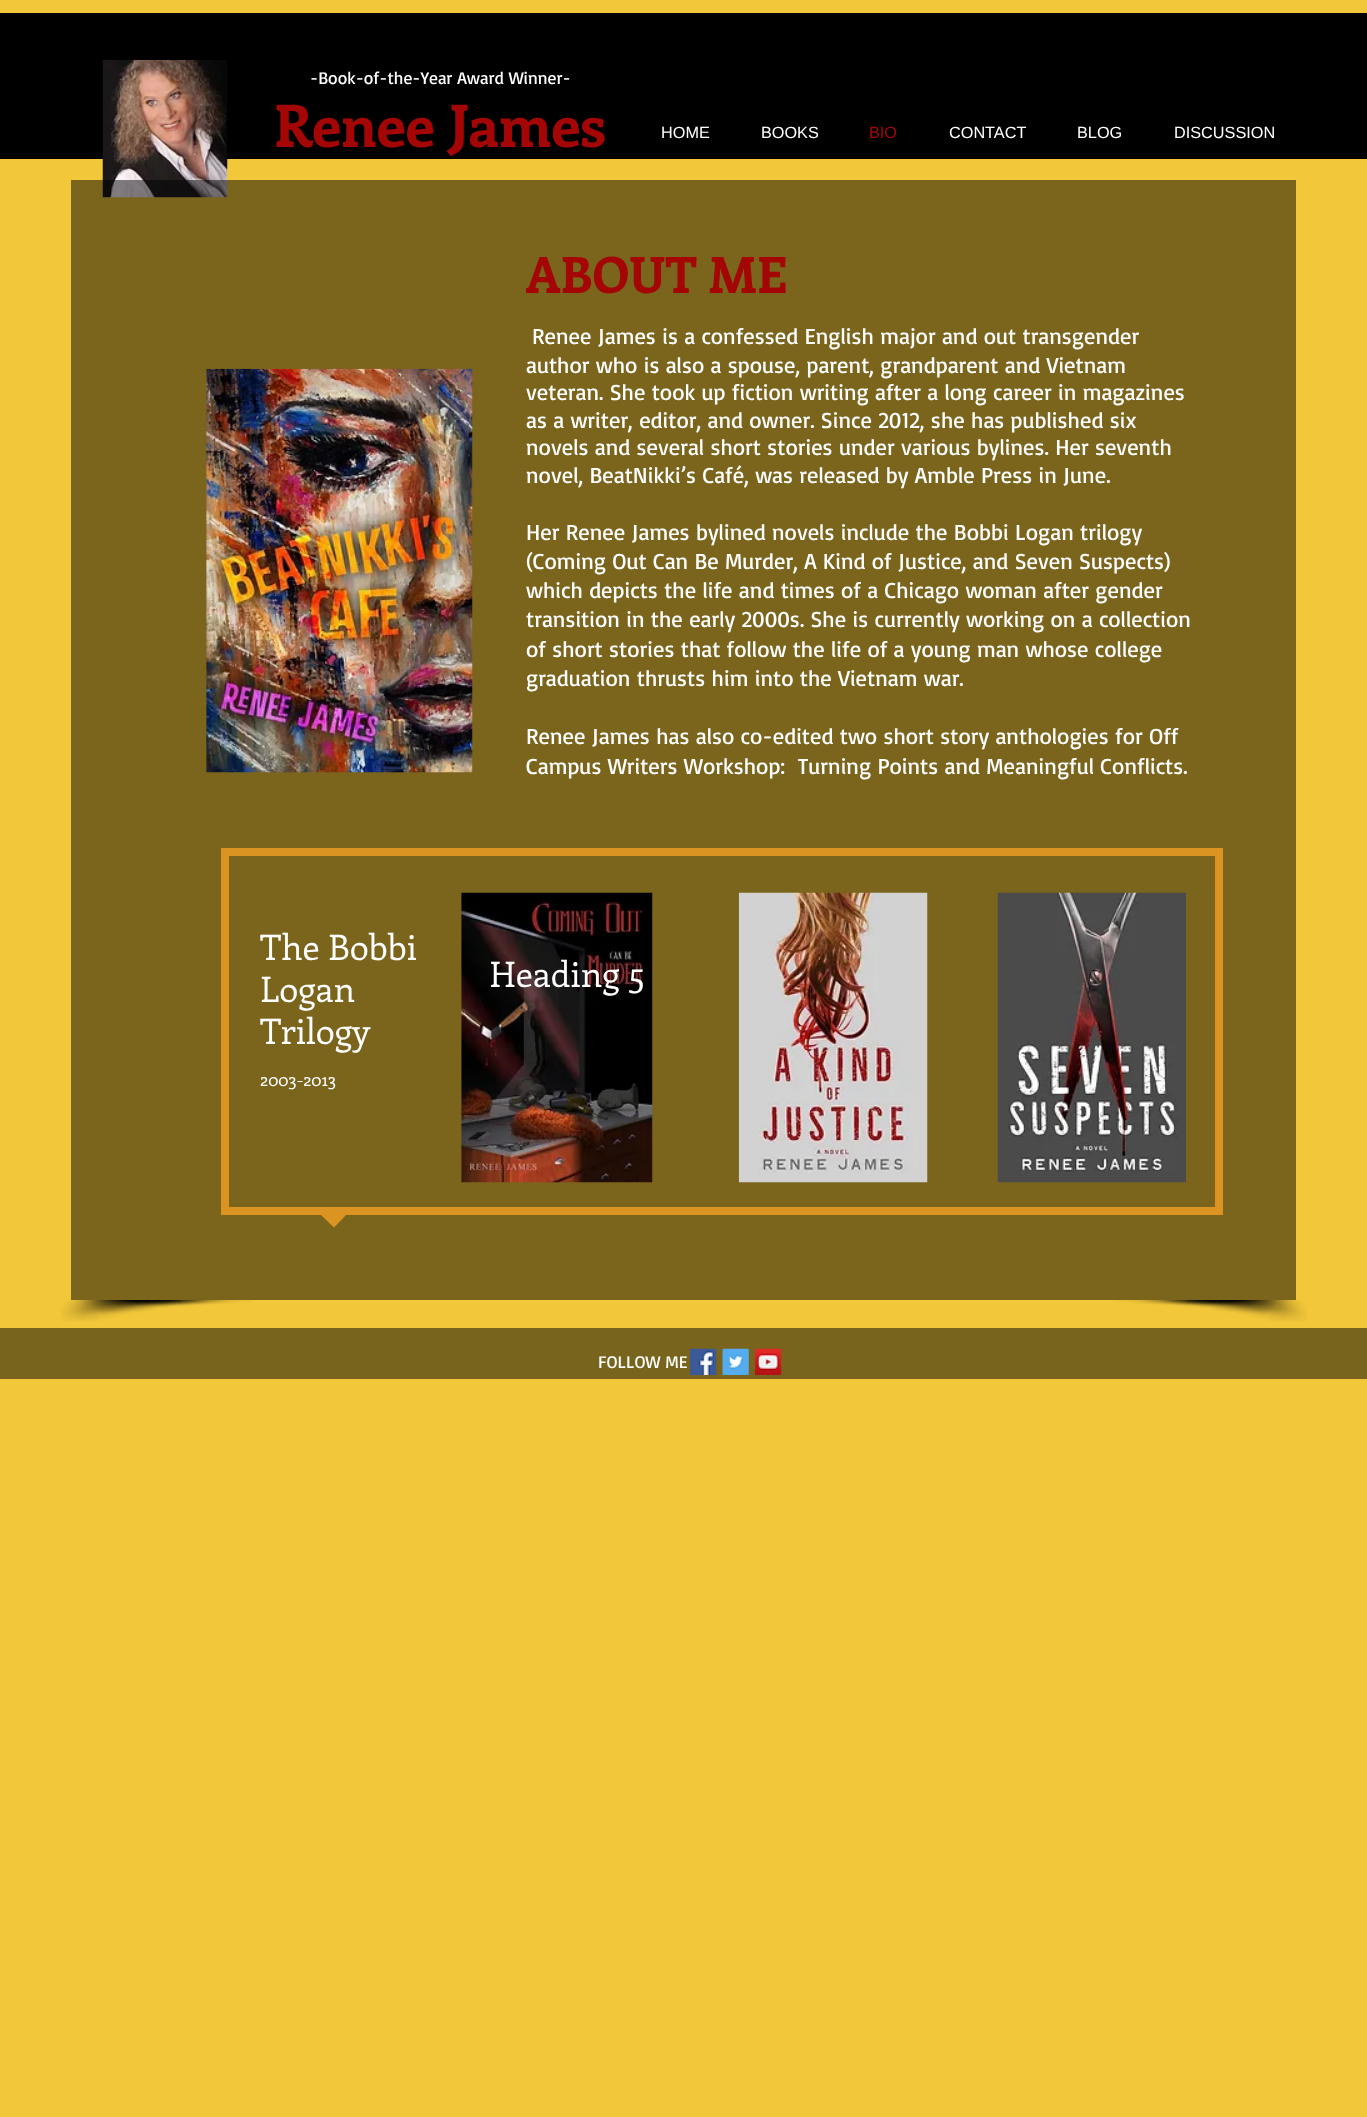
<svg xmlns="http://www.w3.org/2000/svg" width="1367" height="2117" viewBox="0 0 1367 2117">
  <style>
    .t1 { font: 17.5px Basic; fill: #fff; }
    .t2 { font: bold 58.75px Enriqueta; fill: #a40606; }
    .t3 { font: 16.25px Liberation Sans; fill: #fff; }
    .t4 { font: 16.25px Liberation Sans; fill: #a40606; }
    .t5 { font: bold 50px Enriqueta; fill: #a40606; }
    .t6 { font: 22.5px Basic; fill: #fff; }
    .t7 { font: 35px Enriqueta; fill: #fff; }
    .t8 { font: 17.5px Enriqueta; fill: #fff; }
  </style>
  <rect width="100%" height="100%" fill="#f2c73a"/>
  <rect x="0" y="13" width="1367" height="146" fill="#000"/>
  <image x="102" y="60" width="126" height="138" href="images/1.png"/>
  <text x="310" y="84" class="t1">-Book-of-the-Year Award Winner-</text>
  <text x="274" y="147" class="t2">Renee James</text>
  <text x="661" y="138" class="t3">HOME</text>
  <text x="761" y="138" class="t3">BOOKS</text>
  <text x="869" y="138" class="t4">BIO</text>
  <text x="949" y="138" class="t3">CONTACT</text>
  <text x="1077" y="138" class="t3">BLOG</text>
  <text x="1174" y="138" class="t3">DISCUSSION</text>
  <rect x="71" y="180" width="1225" height="1120" fill="#0000007d"/>
  <image x="61" y="1300" width="191" height="22" href="images/2.png"/>
  <image x="1115" y="1300" width="192" height="22" href="images/3.png"/>
  <text x="526" y="293" class="t5">ABOUT ME</text>
  <image x="206" y="368" width="267" height="405" href="images/4.png"/>
  <text x="532" y="344" class="t6">Renee James is a confessed English major and out transgender</text>
  <text x="526" y="373" class="t6">author who is also a spouse, parent, grandparent and Vietnam</text>
  <text x="526" y="400" class="t6">veteran. She took up fiction writing after a long career in magazines</text>
  <text x="526" y="428" class="t6">as a writer, editor, and owner. Since 2012, she has published six</text>
  <text x="526" y="455" class="t6">novels and several short stories under various bylines. Her seventh</text>
  <text x="526" y="483" class="t6">novel, BeatNikki’s Café, was released by Amble Press in June.</text>
  <text x="526" y="540" class="t6">Her Renee James bylined novels include the Bobbi Logan trilogy</text>
  <text x="526" y="569" class="t6">(Coming Out Can Be Murder, A Kind of Justice, and Seven Suspects)</text>
  <text x="526" y="598" class="t6">which depicts the life and times of a Chicago woman after gender</text>
  <text x="526" y="627" class="t6">transition in the early 2000s. She is currently working on a collection</text>
  <text x="526" y="657" class="t6">of short stories that follow the life of a young man whose college</text>
  <text x="526" y="686" class="t6">graduation thrusts him into the Vietnam war.</text>
  <text x="526" y="744" class="t6">Renee James has also co-edited two short story anthologies for Off</text>
  <text x="526" y="774" class="t6" xml:space="preserve">Campus Writers Workshop:  Turning Points and Meaningful Conflicts.</text>
  <rect x="225" y="852" width="994" height="359" fill="none" stroke="#db9421" stroke-width="8"/>
  <text x="260" y="960" class="t7">The Bobbi</text>
  <text x="260" y="1002" class="t7">Logan</text>
  <text x="260" y="1044" class="t7">Trilogy</text>
  <text x="260" y="1086" class="t8">2003-2013</text>
  <image x="461" y="892" width="192" height="291" href="images/5.png"/>
  <image x="738" y="892" width="190" height="291" href="images/6.png"/>
  <image x="997" y="892" width="189" height="291" href="images/7.png"/>
  <path d="M321 1215H346L334 1227.5Z" fill="#db9421"/>
  <text x="490" y="987" class="t7">Heading 5</text>
  <rect x="0" y="1328" width="1367" height="51" fill="#79641d"/>
  <text x="598" y="1368" class="t1">FOLLOW ME</text>
  <image x="690" y="1348" width="27" height="27" href="images/8.png"/>
  <image x="722" y="1348" width="27" height="27" href="images/9.png"/>
  <image x="755" y="1348" width="27" height="27" href="images/10.png"/>
</svg>
